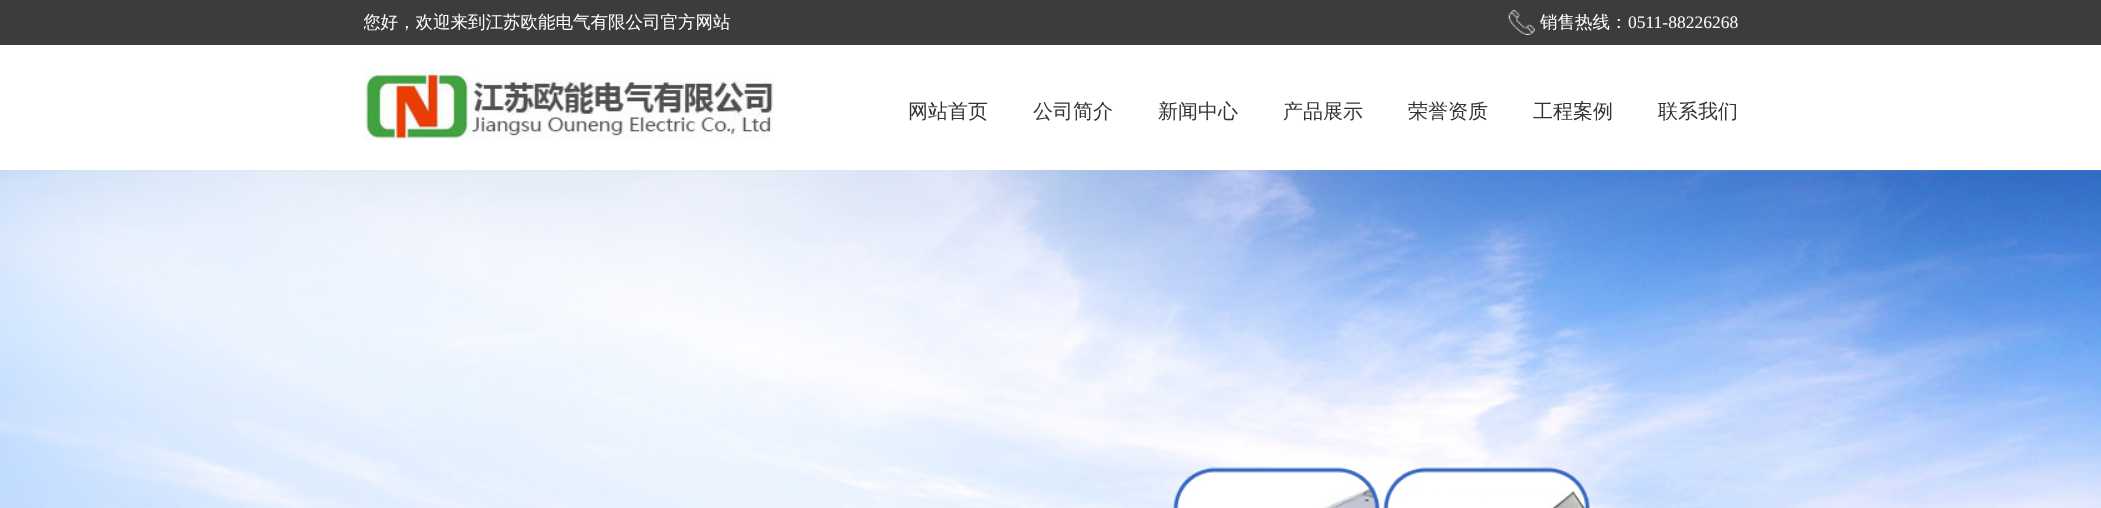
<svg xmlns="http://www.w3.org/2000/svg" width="2101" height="508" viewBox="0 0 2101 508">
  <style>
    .t1 { font: 500 17.5px WenQuanYi Zen Hei; fill: #fff; }
    .t2 { font: 17.5px Liberation Serif; fill: #fff; }
    .t3 { font: 500 20px WenQuanYi Zen Hei; fill: #333; }
  </style>
  <defs>
    <clipPath id="clip1"><rect x="364" y="0" width="1375" height="45"/></clipPath>
  </defs>
  <rect width="100%" height="100%" fill="#fff"/>
  <rect x="0" y="0" width="2101" height="45" fill="#3c3c3c"/>
  <g clip-path="url(#clip1)">
    <text x="363" y="28" class="t1">您好，欢迎来到江苏欧能电气有限公司官方网站</text>
  </g>
  <image x="1508" y="10" width="27" height="25" href="images/1.png"/>
  <text x="1540" y="28" class="t1">销售热线：</text>
  <text x="1628" y="28" class="t2">0511-88226268</text>
  <image x="364" y="70" width="410" height="70" href="images/2.png"/>
  <text x="908" y="118" class="t3">网站首页</text>
  <text x="1033" y="118" class="t3">公司简介</text>
  <text x="1158" y="118" class="t3">新闻中心</text>
  <text x="1283" y="118" class="t3">产品展示</text>
  <text x="1408" y="118" class="t3">荣誉资质</text>
  <text x="1533" y="118" class="t3">工程案例</text>
  <text x="1658" y="118" class="t3">联系我们</text>
  <image x="0" y="170" width="2101" height="338" href="images/3.png"/>
</svg>
